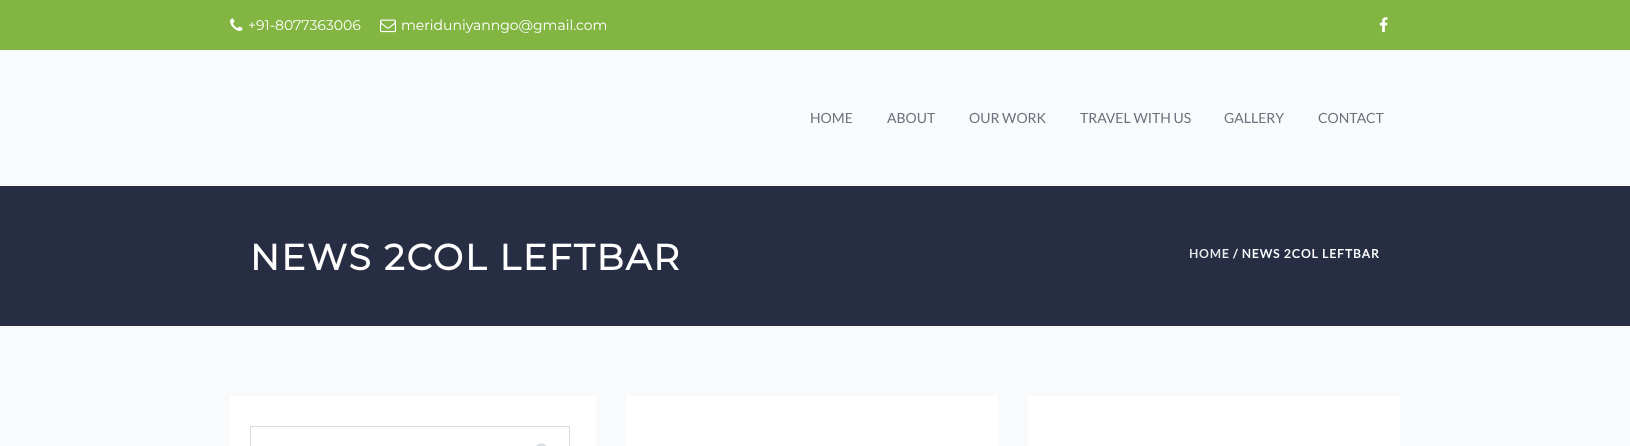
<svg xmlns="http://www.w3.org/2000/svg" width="1630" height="446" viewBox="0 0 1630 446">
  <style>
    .t1 { font: 100 14px Montserrat; fill: #fff; }
    .t2 { font: 14px Lato; fill: #6a727d; }
    .t3 { font: bold 36px Montserrat; letter-spacing: 2px; fill: #fff; }
    .t4 { font: bold 12px Lato; letter-spacing: 1px; fill: #e9eaec; }
    .t5 { font: bold 12px Lato; letter-spacing: 1px; fill: #fff; }
  </style>
  <rect width="100%" height="100%" fill="#f9fafc"/>
  <rect x="0" y="0" width="1630" height="50" fill="#82b541"/>
  <image x="230" y="18" width="13" height="13" href="images/1.png"/>
  <text x="248" y="30" class="t1">+91-8077363006</text>
  <image x="380" y="19" width="16" height="14" href="images/2.png"/>
  <text x="401" y="30" class="t1">meriduniyanngo@gmail.com</text>
  <image x="1379" y="17" width="9" height="16" href="images/3.png"/>
  <text x="810" y="123" class="t2">HOME</text>
  <text x="887" y="123" class="t2">ABOUT</text>
  <text x="969" y="123" class="t2">OUR WORK</text>
  <text x="1080" y="123" class="t2">TRAVEL WITH US</text>
  <text x="1224" y="123" class="t2">GALLERY</text>
  <text x="1318" y="123" class="t2">CONTACT</text>
  <rect x="0" y="186" width="1630" height="140" fill="#272e43"/>
  <text x="250" y="270" class="t3">NEWS 2COL LEFTBAR</text>
  <text x="1189" y="258" class="t4">HOME</text>
  <text x="1233" y="258" class="t5">/ NEWS 2COL LEFTBAR</text>
  <rect x="230" y="396" width="366" height="50" fill="#fff"/>
  <rect x="250.5" y="426.5" width="319" height="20" fill="none" stroke="#d7dde5"/>
  <image x="536" y="443" width="10" height="3" href="images/4.png"/>
  <rect x="626" y="396" width="372" height="50" fill="#fff"/>
  <rect x="1028" y="396" width="372" height="50" fill="#fff"/>
</svg>
